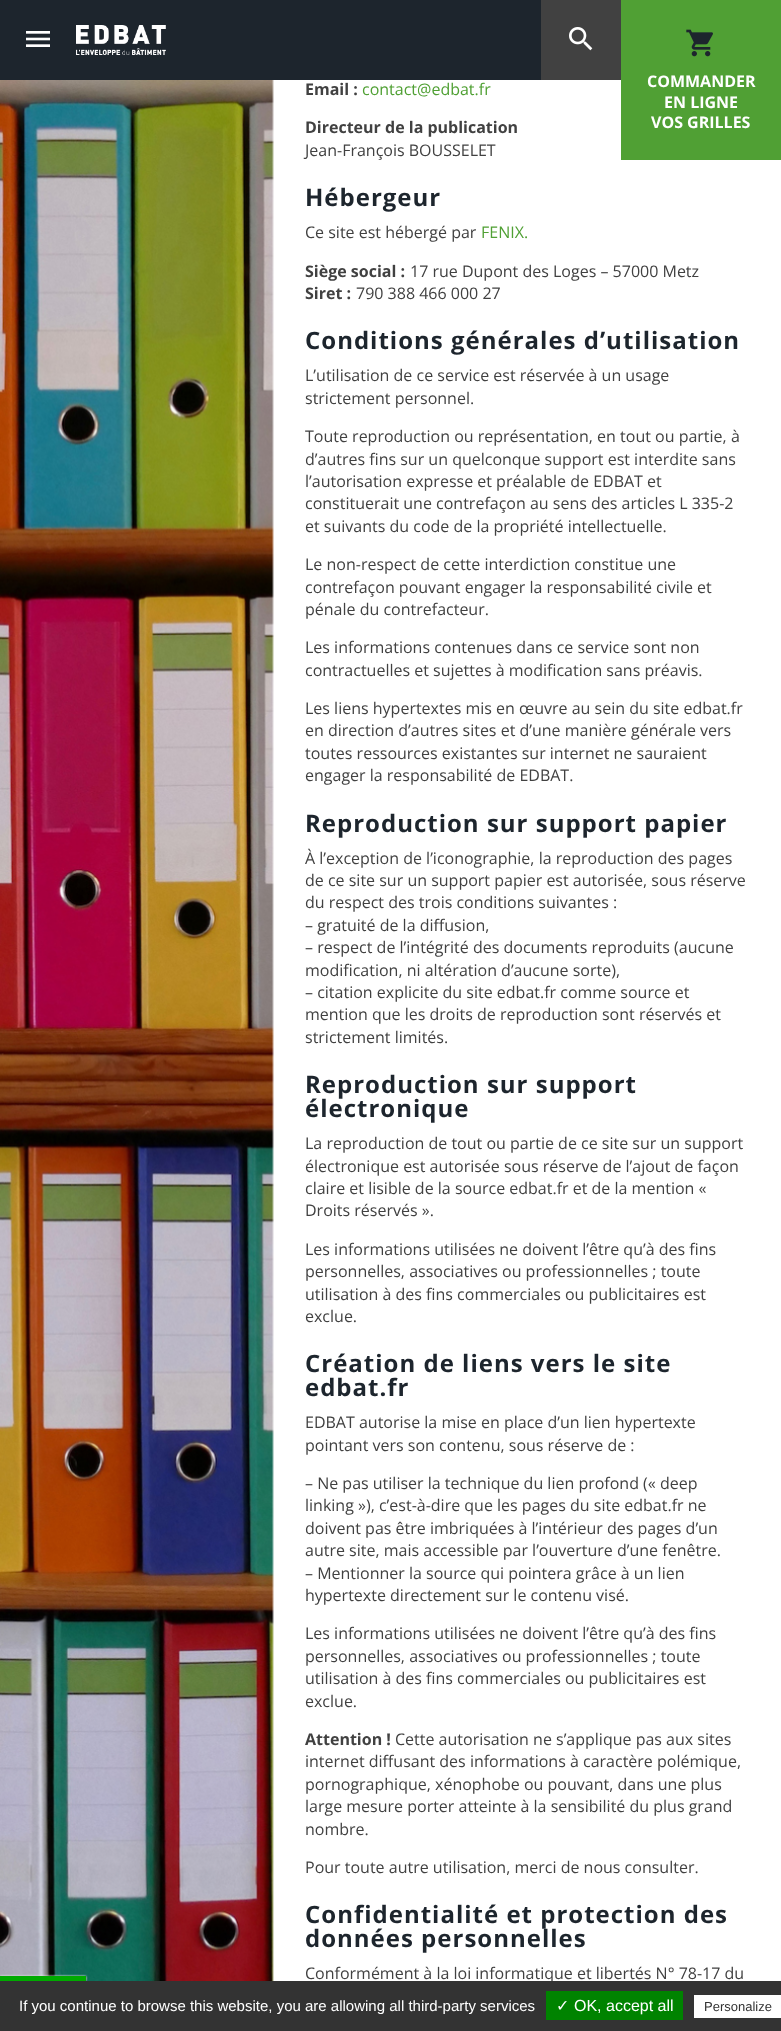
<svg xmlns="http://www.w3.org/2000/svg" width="781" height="2031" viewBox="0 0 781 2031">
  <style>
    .t1 { font: bold 16px Open Sans; fill: #fff; }
    .t2 { font: bold 16px Open Sans; fill: #414141; }
    .t3 { font: 16px Open Sans; fill: #50a034; }
    .t4 { font: 16px Open Sans; fill: #414141; }
    .t5 { font: bold 24px Open Sans; letter-spacing: 1px; fill: #1d252d; }
    .t6 { font: 15px Liberation Sans; fill: #fff; }
    .t7 { font: 16px DejaVu Sans; fill: #fff; }
    .t8 { font: 16px Liberation Sans; fill: #fff; }
    .t9 { font: 13px Liberation Sans; fill: #333; }
  </style>
  <rect width="100%" height="100%" fill="#fff"/>
  <rect x="0" y="0" width="541" height="80" fill="#1d252d"/>
  <image x="26" y="31" width="24" height="16" href="images/1.png"/>
  <image x="76" y="25" width="90" height="30" href="images/2.png"/>
  <rect x="541" y="0" width="80" height="80" fill="#414141"/>
  <image x="569" y="27" width="24" height="24" href="images/3.png"/>
  <rect x="621" y="0" width="160" height="160" fill="#50a034"/>
  <image x="686" y="29" width="27" height="28" href="images/4.png"/>
  <text x="647" y="87" class="t1">COMMANDER</text>
  <text x="664" y="108" class="t1">EN LIGNE</text>
  <text x="651" y="128" class="t1">VOS GRILLES</text>
  <image x="0" y="80" width="274" height="1901" href="images/5.png"/>
  <text x="305" y="95" class="t2">Email :</text>
  <text x="362" y="95" class="t3">contact@edbat.fr</text>
  <text x="305" y="133" class="t2">Directeur de la publication</text>
  <text x="305" y="156" class="t4">Jean-François BOUSSELET</text>
  <text x="305" y="206" class="t5">Hébergeur</text>
  <text x="305" y="238" class="t4">Ce site est hébergé par</text>
  <text x="481" y="238" class="t3">FENIX.</text>
  <text x="305" y="277" class="t2">Siège social :</text>
  <text x="410" y="277" class="t4">17 rue Dupont des Loges – 57000 Metz</text>
  <text x="305" y="299" class="t2">Siret :</text>
  <text x="356" y="299" class="t4">790 388 466 000 27</text>
  <text x="305" y="349" class="t5">Conditions générales d’utilisation</text>
  <text x="305" y="381" class="t4">L’utilisation de ce service est réservée à un usage</text>
  <text x="305" y="404" class="t4">strictement personnel.</text>
  <text x="305" y="442" class="t4">Toute reproduction ou représentation, en tout ou partie, à</text>
  <text x="305" y="465" class="t4">d’autres fins sur un quelconque support est interdite sans</text>
  <text x="305" y="487" class="t4">l’autorisation expresse et préalable de EDBAT et</text>
  <text x="305" y="509" class="t4">constituerait une contrefaçon au sens des articles L 335-2</text>
  <text x="305" y="532" class="t4">et suivants du code de la propriété intellectuelle.</text>
  <text x="305" y="570" class="t4">Le non-respect de cette interdiction constitue une</text>
  <text x="305" y="593" class="t4">contrefaçon pouvant engager la responsabilité civile et</text>
  <text x="305" y="615" class="t4">pénale du contrefacteur.</text>
  <text x="305" y="653" class="t4">Les informations contenues dans ce service sont non</text>
  <text x="305" y="676" class="t4">contractuelles et sujettes à modification sans préavis.</text>
  <text x="305" y="714" class="t4">Les liens hypertextes mis en œuvre au sein du site edbat.fr</text>
  <text x="305" y="736" class="t4">en direction d’autres sites et d’une manière générale vers</text>
  <text x="305" y="759" class="t4">toutes ressources existantes sur internet ne sauraient</text>
  <text x="305" y="781" class="t4">engager la responsabilité de EDBAT.</text>
  <text x="305" y="832" class="t5">Reproduction sur support papier</text>
  <text x="305" y="864" class="t4">À l’exception de l’iconographie, la reproduction des pages</text>
  <text x="305" y="886" class="t4">de ce site sur un support papier est autorisée, sous réserve</text>
  <text x="305" y="908" class="t4">du respect des trois conditions suivantes :</text>
  <text x="305" y="931" class="t4">– gratuité de la diffusion,</text>
  <text x="305" y="953" class="t4">– respect de l’intégrité des documents reproduits (aucune</text>
  <text x="305" y="976" class="t4">modification, ni altération d’aucune sorte),</text>
  <text x="305" y="998" class="t4">– citation explicite du site edbat.fr comme source et</text>
  <text x="305" y="1020" class="t4">mention que les droits de reproduction sont réservés et</text>
  <text x="305" y="1043" class="t4">strictement limités.</text>
  <text x="305" y="1093" class="t5">Reproduction sur support</text>
  <text x="305" y="1117" class="t5">électronique</text>
  <text x="305" y="1149" class="t4">La reproduction de tout ou partie de ce site sur un support</text>
  <text x="305" y="1172" class="t4">électronique est autorisée sous réserve de l’ajout de façon</text>
  <text x="305" y="1194" class="t4">claire et lisible de la source edbat.fr et de la mention «</text>
  <text x="305" y="1216" class="t4">Droits réservés ».</text>
  <text x="305" y="1255" class="t4">Les informations utilisées ne doivent l’être qu’à des fins</text>
  <text x="305" y="1277" class="t4">personnelles, associatives ou professionnelles ; toute</text>
  <text x="305" y="1300" class="t4">utilisation à des fins commerciales ou publicitaires est</text>
  <text x="305" y="1322" class="t4">exclue.</text>
  <text x="305" y="1372" class="t5">Création de liens vers le site</text>
  <text x="305" y="1396" class="t5">edbat.fr</text>
  <text x="305" y="1428" class="t4">EDBAT autorise la mise en place d’un lien hypertexte</text>
  <text x="305" y="1451" class="t4">pointant vers son contenu, sous réserve de :</text>
  <text x="305" y="1489" class="t4">– Ne pas utiliser la technique du lien profond (« deep</text>
  <text x="305" y="1511" class="t4">linking »), c’est-à-dire que les pages du site edbat.fr ne</text>
  <text x="305" y="1534" class="t4">doivent pas être imbriquées à l’intérieur des pages d’un</text>
  <text x="305" y="1556" class="t4">autre site, mais accessible par l’ouverture d’une fenêtre.</text>
  <text x="305" y="1579" class="t4">– Mentionner la source qui pointera grâce à un lien</text>
  <text x="305" y="1601" class="t4">hypertexte directement sur le contenu visé.</text>
  <text x="305" y="1639" class="t4">Les informations utilisées ne doivent l’être qu’à des fins</text>
  <text x="305" y="1662" class="t4">personnelles, associatives ou professionnelles ; toute</text>
  <text x="305" y="1684" class="t4">utilisation à des fins commerciales ou publicitaires est</text>
  <text x="305" y="1707" class="t4">exclue.</text>
  <text x="305" y="1745" class="t2">Attention !</text>
  <text x="395" y="1745" class="t4">Cette autorisation ne s’applique pas aux sites</text>
  <text x="305" y="1767" class="t4">internet diffusant des informations à caractère polémique,</text>
  <text x="305" y="1790" class="t4">pornographique, xénophobe ou pouvant, dans une plus</text>
  <text x="305" y="1812" class="t4">large mesure porter atteinte à la sensibilité du plus grand</text>
  <text x="305" y="1835" class="t4">nombre.</text>
  <text x="305" y="1873" class="t4">Pour toute autre utilisation, merci de nous consulter.</text>
  <text x="305" y="1923" class="t5">Confidentialité et protection des</text>
  <text x="305" y="1947" class="t5">données personnelles</text>
  <text x="305" y="1979" class="t4">Conformément à la loi informatique et libertés N° 78-17 du</text>
  <rect x="0" y="1977" width="86" height="5" fill="#555" filter="blur(1px)"/>
  <rect x="0" y="1976" width="86" height="5" fill="#fff" filter="blur(1px)"/>
  <rect x="0" y="1976" width="86" height="5" fill="#0a0"/>
  <rect x="0" y="1981" width="781" height="50" fill="#333"/>
  <text x="19" y="2011" class="t6">If you continue to browse this website, you are allowing all third-party services</text>
  <rect x="546" y="1991" width="137" height="29" fill="#008300"/>
  <text x="556" y="2011" class="t7">✓</text>
  <text x="574" y="2011" class="t8">OK, accept all</text>
  <rect x="694" y="1995" width="87" height="23" fill="#fff"/>
  <text x="704" y="2011" class="t9">Personalize</text>
</svg>
